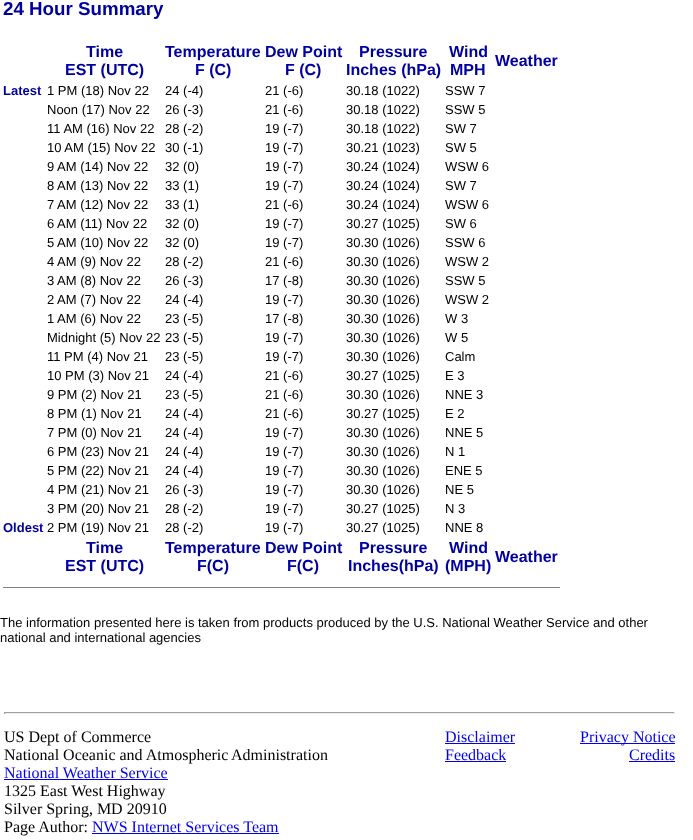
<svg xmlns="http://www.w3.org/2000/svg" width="693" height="840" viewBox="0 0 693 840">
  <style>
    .t1 { font: bold 18.75px Liberation Sans; fill: #0000a0; }
    .t2 { font: bold 16px Liberation Sans; fill: #0000a0; }
    .t3 { font: bold 13px Liberation Sans; fill: #0000a0; }
    .t4 { font: 13px Liberation Sans; fill: #000; }
    .t5 { font: 16px Liberation Serif; fill: #000; }
    .t6 { font: 16px Liberation Serif; fill: #00e; }
  </style>
  <rect width="100%" height="100%" fill="#fff"/>
  <text x="3" y="15" class="t1">24 Hour Summary</text>
  <text x="86" y="57" class="t2">Time</text>
  <text x="65" y="75" class="t2">EST (UTC)</text>
  <text x="165" y="57" class="t2">Temperature</text>
  <text x="195" y="75" class="t2">F (C)</text>
  <text x="265" y="57" class="t2">Dew Point</text>
  <text x="285" y="75" class="t2">F (C)</text>
  <text x="359" y="57" class="t2">Pressure</text>
  <text x="346" y="75" class="t2">Inches (hPa)</text>
  <text x="449" y="57" class="t2">Wind</text>
  <text x="450" y="75" class="t2">MPH</text>
  <text x="495" y="66" class="t2">Weather</text>
  <text x="3" y="95" class="t3">Latest</text>
  <text x="47" y="95" class="t4">1 PM (18) Nov 22</text>
  <text x="165" y="95" class="t4">24 (-4)</text>
  <text x="265" y="95" class="t4">21 (-6)</text>
  <text x="346" y="95" class="t4">30.18 (1022)</text>
  <text x="445" y="95" class="t4">SSW 7</text>
  <text x="47" y="114" class="t4">Noon (17) Nov 22</text>
  <text x="165" y="114" class="t4">26 (-3)</text>
  <text x="265" y="114" class="t4">21 (-6)</text>
  <text x="346" y="114" class="t4">30.18 (1022)</text>
  <text x="445" y="114" class="t4">SSW 5</text>
  <text x="47" y="133" class="t4">11 AM (16) Nov 22</text>
  <text x="165" y="133" class="t4">28 (-2)</text>
  <text x="265" y="133" class="t4">19 (-7)</text>
  <text x="346" y="133" class="t4">30.18 (1022)</text>
  <text x="445" y="133" class="t4">SW 7</text>
  <text x="47" y="152" class="t4">10 AM (15) Nov 22</text>
  <text x="165" y="152" class="t4">30 (-1)</text>
  <text x="265" y="152" class="t4">19 (-7)</text>
  <text x="346" y="152" class="t4">30.21 (1023)</text>
  <text x="445" y="152" class="t4">SW 5</text>
  <text x="47" y="171" class="t4">9 AM (14) Nov 22</text>
  <text x="165" y="171" class="t4">32 (0)</text>
  <text x="265" y="171" class="t4">19 (-7)</text>
  <text x="346" y="171" class="t4">30.24 (1024)</text>
  <text x="445" y="171" class="t4">WSW 6</text>
  <text x="47" y="190" class="t4">8 AM (13) Nov 22</text>
  <text x="165" y="190" class="t4">33 (1)</text>
  <text x="265" y="190" class="t4">19 (-7)</text>
  <text x="346" y="190" class="t4">30.24 (1024)</text>
  <text x="445" y="190" class="t4">SW 7</text>
  <text x="47" y="209" class="t4">7 AM (12) Nov 22</text>
  <text x="165" y="209" class="t4">33 (1)</text>
  <text x="265" y="209" class="t4">21 (-6)</text>
  <text x="346" y="209" class="t4">30.24 (1024)</text>
  <text x="445" y="209" class="t4">WSW 6</text>
  <text x="47" y="228" class="t4">6 AM (11) Nov 22</text>
  <text x="165" y="228" class="t4">32 (0)</text>
  <text x="265" y="228" class="t4">19 (-7)</text>
  <text x="346" y="228" class="t4">30.27 (1025)</text>
  <text x="445" y="228" class="t4">SW 6</text>
  <text x="47" y="247" class="t4">5 AM (10) Nov 22</text>
  <text x="165" y="247" class="t4">32 (0)</text>
  <text x="265" y="247" class="t4">19 (-7)</text>
  <text x="346" y="247" class="t4">30.30 (1026)</text>
  <text x="445" y="247" class="t4">SSW 6</text>
  <text x="47" y="266" class="t4">4 AM (9) Nov 22</text>
  <text x="165" y="266" class="t4">28 (-2)</text>
  <text x="265" y="266" class="t4">21 (-6)</text>
  <text x="346" y="266" class="t4">30.30 (1026)</text>
  <text x="445" y="266" class="t4">WSW 2</text>
  <text x="47" y="285" class="t4">3 AM (8) Nov 22</text>
  <text x="165" y="285" class="t4">26 (-3)</text>
  <text x="265" y="285" class="t4">17 (-8)</text>
  <text x="346" y="285" class="t4">30.30 (1026)</text>
  <text x="445" y="285" class="t4">SSW 5</text>
  <text x="47" y="304" class="t4">2 AM (7) Nov 22</text>
  <text x="165" y="304" class="t4">24 (-4)</text>
  <text x="265" y="304" class="t4">19 (-7)</text>
  <text x="346" y="304" class="t4">30.30 (1026)</text>
  <text x="445" y="304" class="t4">WSW 2</text>
  <text x="47" y="323" class="t4">1 AM (6) Nov 22</text>
  <text x="165" y="323" class="t4">23 (-5)</text>
  <text x="265" y="323" class="t4">17 (-8)</text>
  <text x="346" y="323" class="t4">30.30 (1026)</text>
  <text x="445" y="323" class="t4">W 3</text>
  <text x="47" y="342" class="t4">Midnight (5) Nov 22</text>
  <text x="165" y="342" class="t4">23 (-5)</text>
  <text x="265" y="342" class="t4">19 (-7)</text>
  <text x="346" y="342" class="t4">30.30 (1026)</text>
  <text x="445" y="342" class="t4">W 5</text>
  <text x="47" y="361" class="t4">11 PM (4) Nov 21</text>
  <text x="165" y="361" class="t4">23 (-5)</text>
  <text x="265" y="361" class="t4">19 (-7)</text>
  <text x="346" y="361" class="t4">30.30 (1026)</text>
  <text x="445" y="361" class="t4">Calm</text>
  <text x="47" y="380" class="t4">10 PM (3) Nov 21</text>
  <text x="165" y="380" class="t4">24 (-4)</text>
  <text x="265" y="380" class="t4">21 (-6)</text>
  <text x="346" y="380" class="t4">30.27 (1025)</text>
  <text x="445" y="380" class="t4">E 3</text>
  <text x="47" y="399" class="t4">9 PM (2) Nov 21</text>
  <text x="165" y="399" class="t4">23 (-5)</text>
  <text x="265" y="399" class="t4">21 (-6)</text>
  <text x="346" y="399" class="t4">30.30 (1026)</text>
  <text x="445" y="399" class="t4">NNE 3</text>
  <text x="47" y="418" class="t4">8 PM (1) Nov 21</text>
  <text x="165" y="418" class="t4">24 (-4)</text>
  <text x="265" y="418" class="t4">21 (-6)</text>
  <text x="346" y="418" class="t4">30.27 (1025)</text>
  <text x="445" y="418" class="t4">E 2</text>
  <text x="47" y="437" class="t4">7 PM (0) Nov 21</text>
  <text x="165" y="437" class="t4">24 (-4)</text>
  <text x="265" y="437" class="t4">19 (-7)</text>
  <text x="346" y="437" class="t4">30.30 (1026)</text>
  <text x="445" y="437" class="t4">NNE 5</text>
  <text x="47" y="456" class="t4">6 PM (23) Nov 21</text>
  <text x="165" y="456" class="t4">24 (-4)</text>
  <text x="265" y="456" class="t4">19 (-7)</text>
  <text x="346" y="456" class="t4">30.30 (1026)</text>
  <text x="445" y="456" class="t4">N 1</text>
  <text x="47" y="475" class="t4">5 PM (22) Nov 21</text>
  <text x="165" y="475" class="t4">24 (-4)</text>
  <text x="265" y="475" class="t4">19 (-7)</text>
  <text x="346" y="475" class="t4">30.30 (1026)</text>
  <text x="445" y="475" class="t4">ENE 5</text>
  <text x="47" y="494" class="t4">4 PM (21) Nov 21</text>
  <text x="165" y="494" class="t4">26 (-3)</text>
  <text x="265" y="494" class="t4">19 (-7)</text>
  <text x="346" y="494" class="t4">30.30 (1026)</text>
  <text x="445" y="494" class="t4">NE 5</text>
  <text x="47" y="513" class="t4">3 PM (20) Nov 21</text>
  <text x="165" y="513" class="t4">28 (-2)</text>
  <text x="265" y="513" class="t4">19 (-7)</text>
  <text x="346" y="513" class="t4">30.27 (1025)</text>
  <text x="445" y="513" class="t4">N 3</text>
  <text x="3" y="532" class="t3">Oldest</text>
  <text x="47" y="532" class="t4">2 PM (19) Nov 21</text>
  <text x="165" y="532" class="t4">28 (-2)</text>
  <text x="265" y="532" class="t4">19 (-7)</text>
  <text x="346" y="532" class="t4">30.27 (1025)</text>
  <text x="445" y="532" class="t4">NNE 8</text>
  <text x="86" y="553" class="t2">Time</text>
  <text x="65" y="571" class="t2">EST (UTC)</text>
  <text x="165" y="553" class="t2">Temperature</text>
  <text x="197" y="571" class="t2">F(C)</text>
  <text x="265" y="553" class="t2">Dew Point</text>
  <text x="287" y="571" class="t2">F(C)</text>
  <text x="359" y="553" class="t2">Pressure</text>
  <text x="348" y="571" class="t2">Inches(hPa)</text>
  <text x="449" y="553" class="t2">Wind</text>
  <text x="445" y="571" class="t2">(MPH)</text>
  <text x="495" y="562" class="t2">Weather</text>
  <rect x="3" y="587" width="557" height="1" fill="#808080"/>
  <text x="0" y="627" class="t4">The information presented here is taken from products produced by the U.S. National Weather Service and other</text>
  <text x="0" y="642" class="t4">national and international agencies</text>
  <rect x="4" y="712" width="671" height="1" fill="#9f9f9f"/>
  <rect x="674" y="712" width="1" height="2" fill="#eee"/>
  <rect x="4" y="713" width="671" height="1" fill="#eee"/>
  <rect x="4" y="712" width="1" height="2" fill="#9f9f9f"/>
  <text x="4" y="742" class="t5">US Dept of Commerce</text>
  <text x="4" y="760" class="t5">National Oceanic and Atmospheric</text>
  <text x="231" y="760" class="t5">Administration</text>
  <text x="4" y="778" class="t6">National Weather Service</text>
  <rect x="4" y="779" width="164" height="1" fill="#00e"/>
  <text x="4" y="796" class="t5">1325 East West Highway</text>
  <text x="4" y="814" class="t5">Silver Spring, MD 20910</text>
  <text x="4" y="832" class="t5">Page Author:</text>
  <text x="92" y="832" class="t6">NWS Internet Services Team</text>
  <rect x="92" y="833" width="187" height="1" fill="#00e"/>
  <text x="445" y="742" class="t6">Disclaimer</text>
  <rect x="445" y="743" width="70" height="1" fill="#00e"/>
  <text x="445" y="760" class="t6">Feedback</text>
  <rect x="445" y="761" width="61" height="1" fill="#00e"/>
  <rect x="580" y="743" width="95" height="1" fill="#00e"/>
  <text x="580" y="742" class="t6">Privacy Notice</text>
  <text x="629" y="760" class="t6">Credits</text>
  <rect x="629" y="761" width="46" height="1" fill="#00e"/>
</svg>
